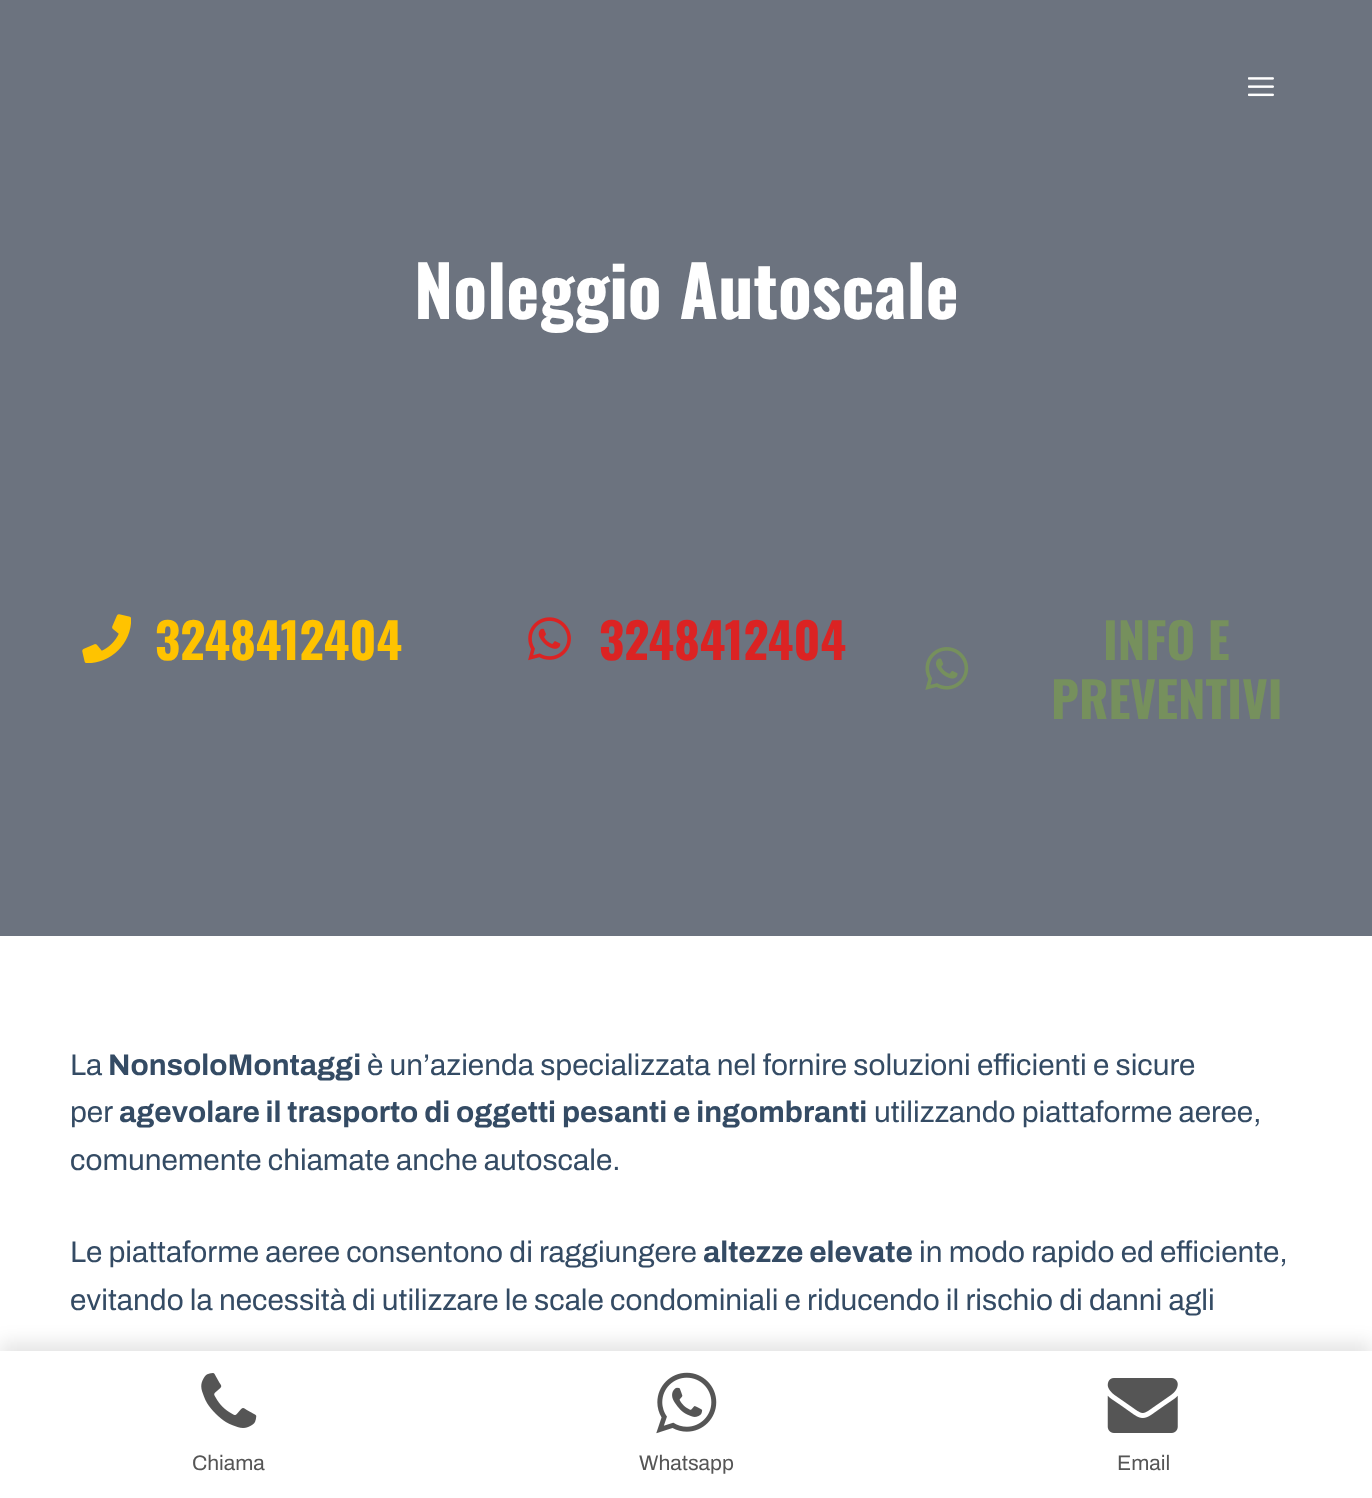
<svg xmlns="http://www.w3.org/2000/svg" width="1372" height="1498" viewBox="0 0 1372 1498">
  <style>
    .t1 { font: bold 70px Oswald; fill: #fff; }
    .t2 { font: bold 49px Oswald; fill: #ffc300; }
    .t3 { font: bold 49px Oswald; fill: #db2323; }
    .t4 { font: bold 49px Oswald; fill: #76905d; }
    .t5 { font: 29.75px Archivo; fill: #344b64; }
    .t6 { font: bold 29.75px Archivo; fill: #344b64; }
    .t7 { font: 21px Archivo; fill: #555; }
  </style>
  <rect width="100%" height="100%" fill="#fff"/>
  <rect x="0" y="0" width="1372" height="936" fill="#6c737f"/>
  <image x="1248" y="77" width="26" height="20" href="images/1.png"/>
  <text x="414" y="319" class="t1">Noleggio Autoscale</text>
  <image x="82" y="614" width="49" height="49" href="images/2.png"/>
  <text x="155" y="660" class="t2">3248412404</text>
  <image x="528" y="617" width="43" height="44" href="images/3.png"/>
  <text x="599" y="660" class="t3">3248412404</text>
  <image x="925" y="647" width="44" height="43" href="images/4.png"/>
  <text x="1103" y="660" class="t4">INFO E</text>
  <text x="1051" y="719" class="t4">PREVENTIVI</text>
  <text x="70" y="1075" class="t5">La</text>
  <text x="108" y="1075" class="t6">NonsoloMontaggi</text>
  <text x="367" y="1075" class="t5">è un’azienda specializzata nel fornire soluzioni efficienti e sicure</text>
  <text x="70" y="1122" class="t5">per</text>
  <text x="119" y="1122" class="t6">agevolare il trasporto di oggetti pesanti e ingombranti</text>
  <text x="874" y="1122" class="t5">utilizzando piattaforme aeree,</text>
  <text x="70" y="1170" class="t5">comunemente chiamate anche autoscale.</text>
  <text x="70" y="1262" class="t5">Le piattaforme aeree consentono di raggiungere</text>
  <text x="703" y="1262" class="t6">altezze elevate</text>
  <text x="919" y="1262" class="t5">in modo rapido ed efficiente,</text>
  <text x="70" y="1310" class="t5">evitando la necessità di utilizzare le scale condominiali e riducendo il rischio di danni agli</text>
  <rect x="0" y="1342" width="1372" height="147" fill="#0000001a" filter="blur(9px)"/>
  <rect x="0" y="1351" width="1372" height="147" fill="#fff"/>
  <image x="201" y="1373" width="56" height="55" href="images/5.png"/>
  <text x="192" y="1470" class="t7">Chiama</text>
  <image x="656" y="1372" width="61" height="62" href="images/6.png"/>
  <text x="639" y="1470" class="t7">Whatsapp</text>
  <image x="1107" y="1378" width="71" height="55" href="images/7.png"/>
  <text x="1117" y="1470" class="t7">Email</text>
</svg>
